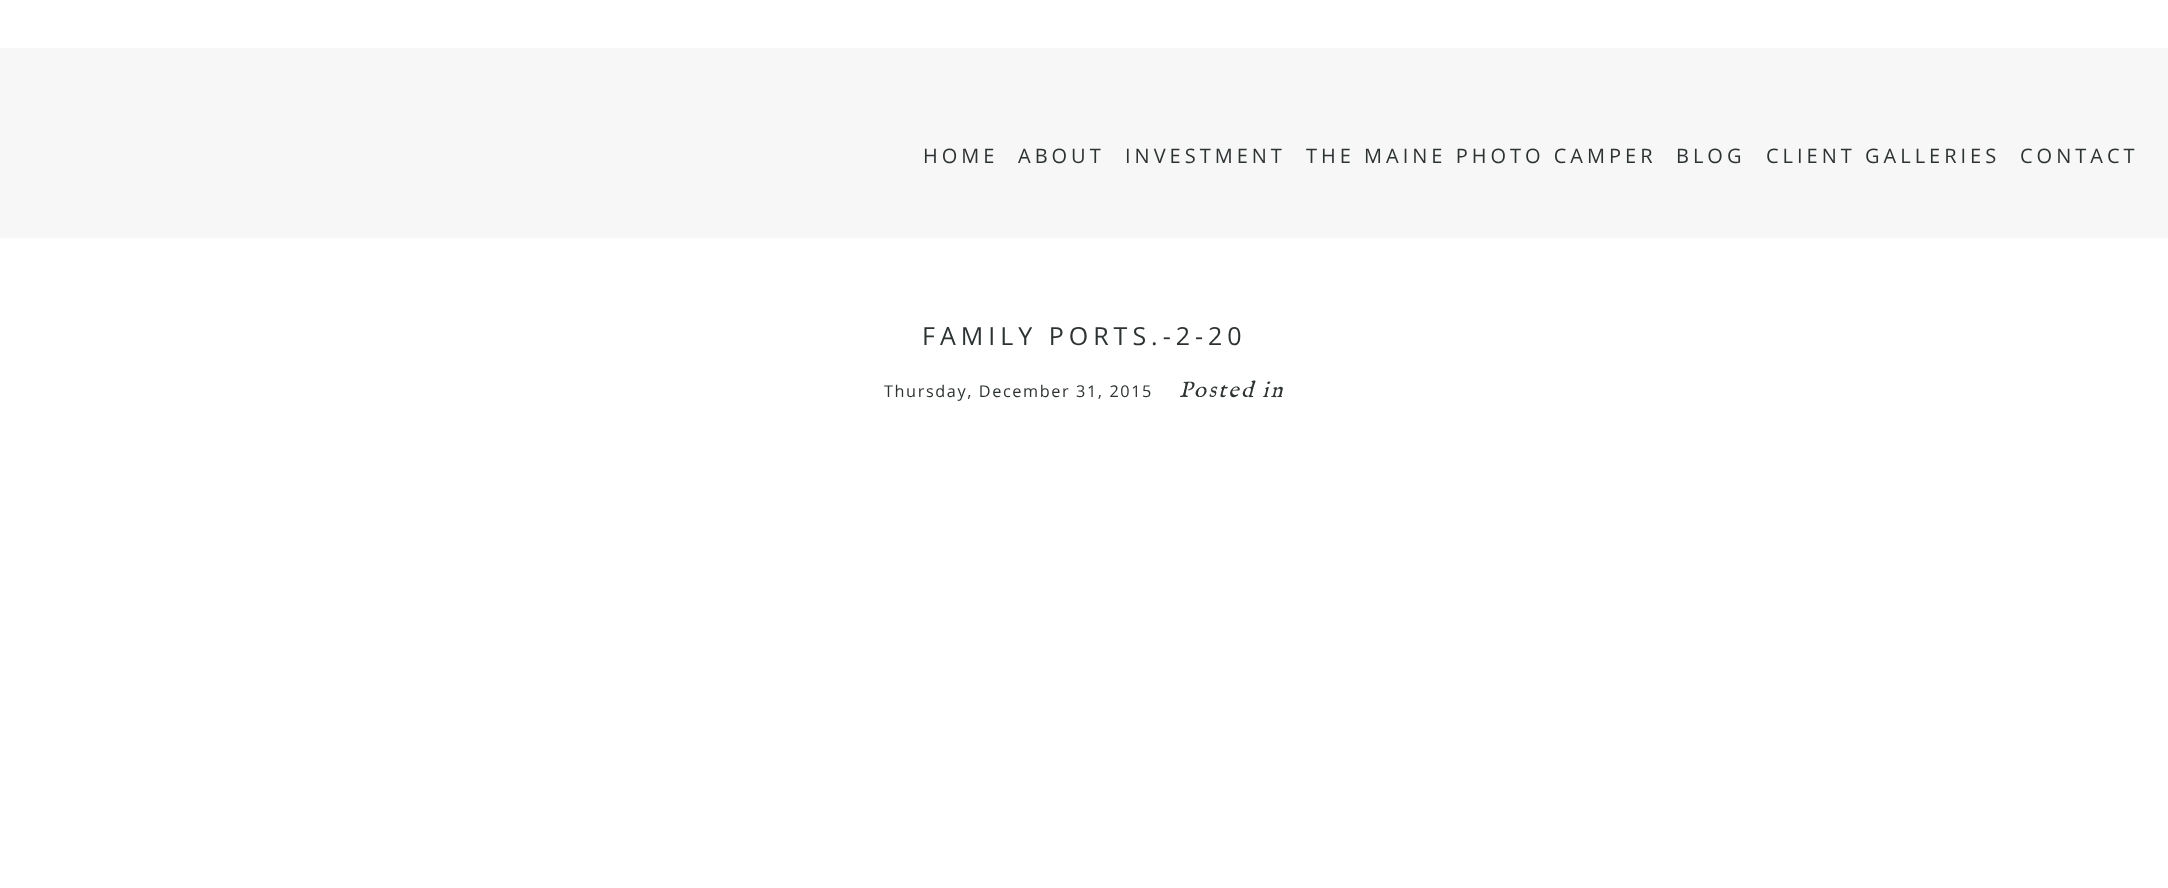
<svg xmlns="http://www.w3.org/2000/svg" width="2168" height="888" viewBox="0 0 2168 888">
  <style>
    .t1 { font: 20px Open Sans; letter-spacing: 4px; fill: #2d3233; }
    .t2 { font: 25px Open Sans; letter-spacing: 5px; fill: #2d3233; }
    .t3 { font: 16.25px Open Sans; letter-spacing: 1.6px; fill: #2d3233; }
    .t4 { font: italic 22.5px IM FELL English; letter-spacing: 2.25px; fill: #2d3233; }
  </style>
  <rect width="100%" height="100%" fill="#fff"/>
  <rect x="0" y="48" width="2168" height="190" fill="#f7f7f7"/>
  <text x="923" y="163" class="t1">HOME</text>
  <text x="1018" y="163" class="t1">ABOUT</text>
  <text x="1125" y="163" class="t1">INVESTMENT</text>
  <text x="1306" y="163" class="t1">THE MAINE PHOTO CAMPER</text>
  <text x="1676" y="163" class="t1">BLOG</text>
  <text x="1766" y="163" class="t1">CLIENT GALLERIES</text>
  <text x="2020" y="163" class="t1">CONTACT</text>
  <text x="922" y="345" class="t2">FAMILY PORTS.-2-20</text>
  <text x="884" y="397" class="t3">Thursday, December 31, 2015</text>
  <text x="1179" y="397" class="t4">Posted in</text>
</svg>
